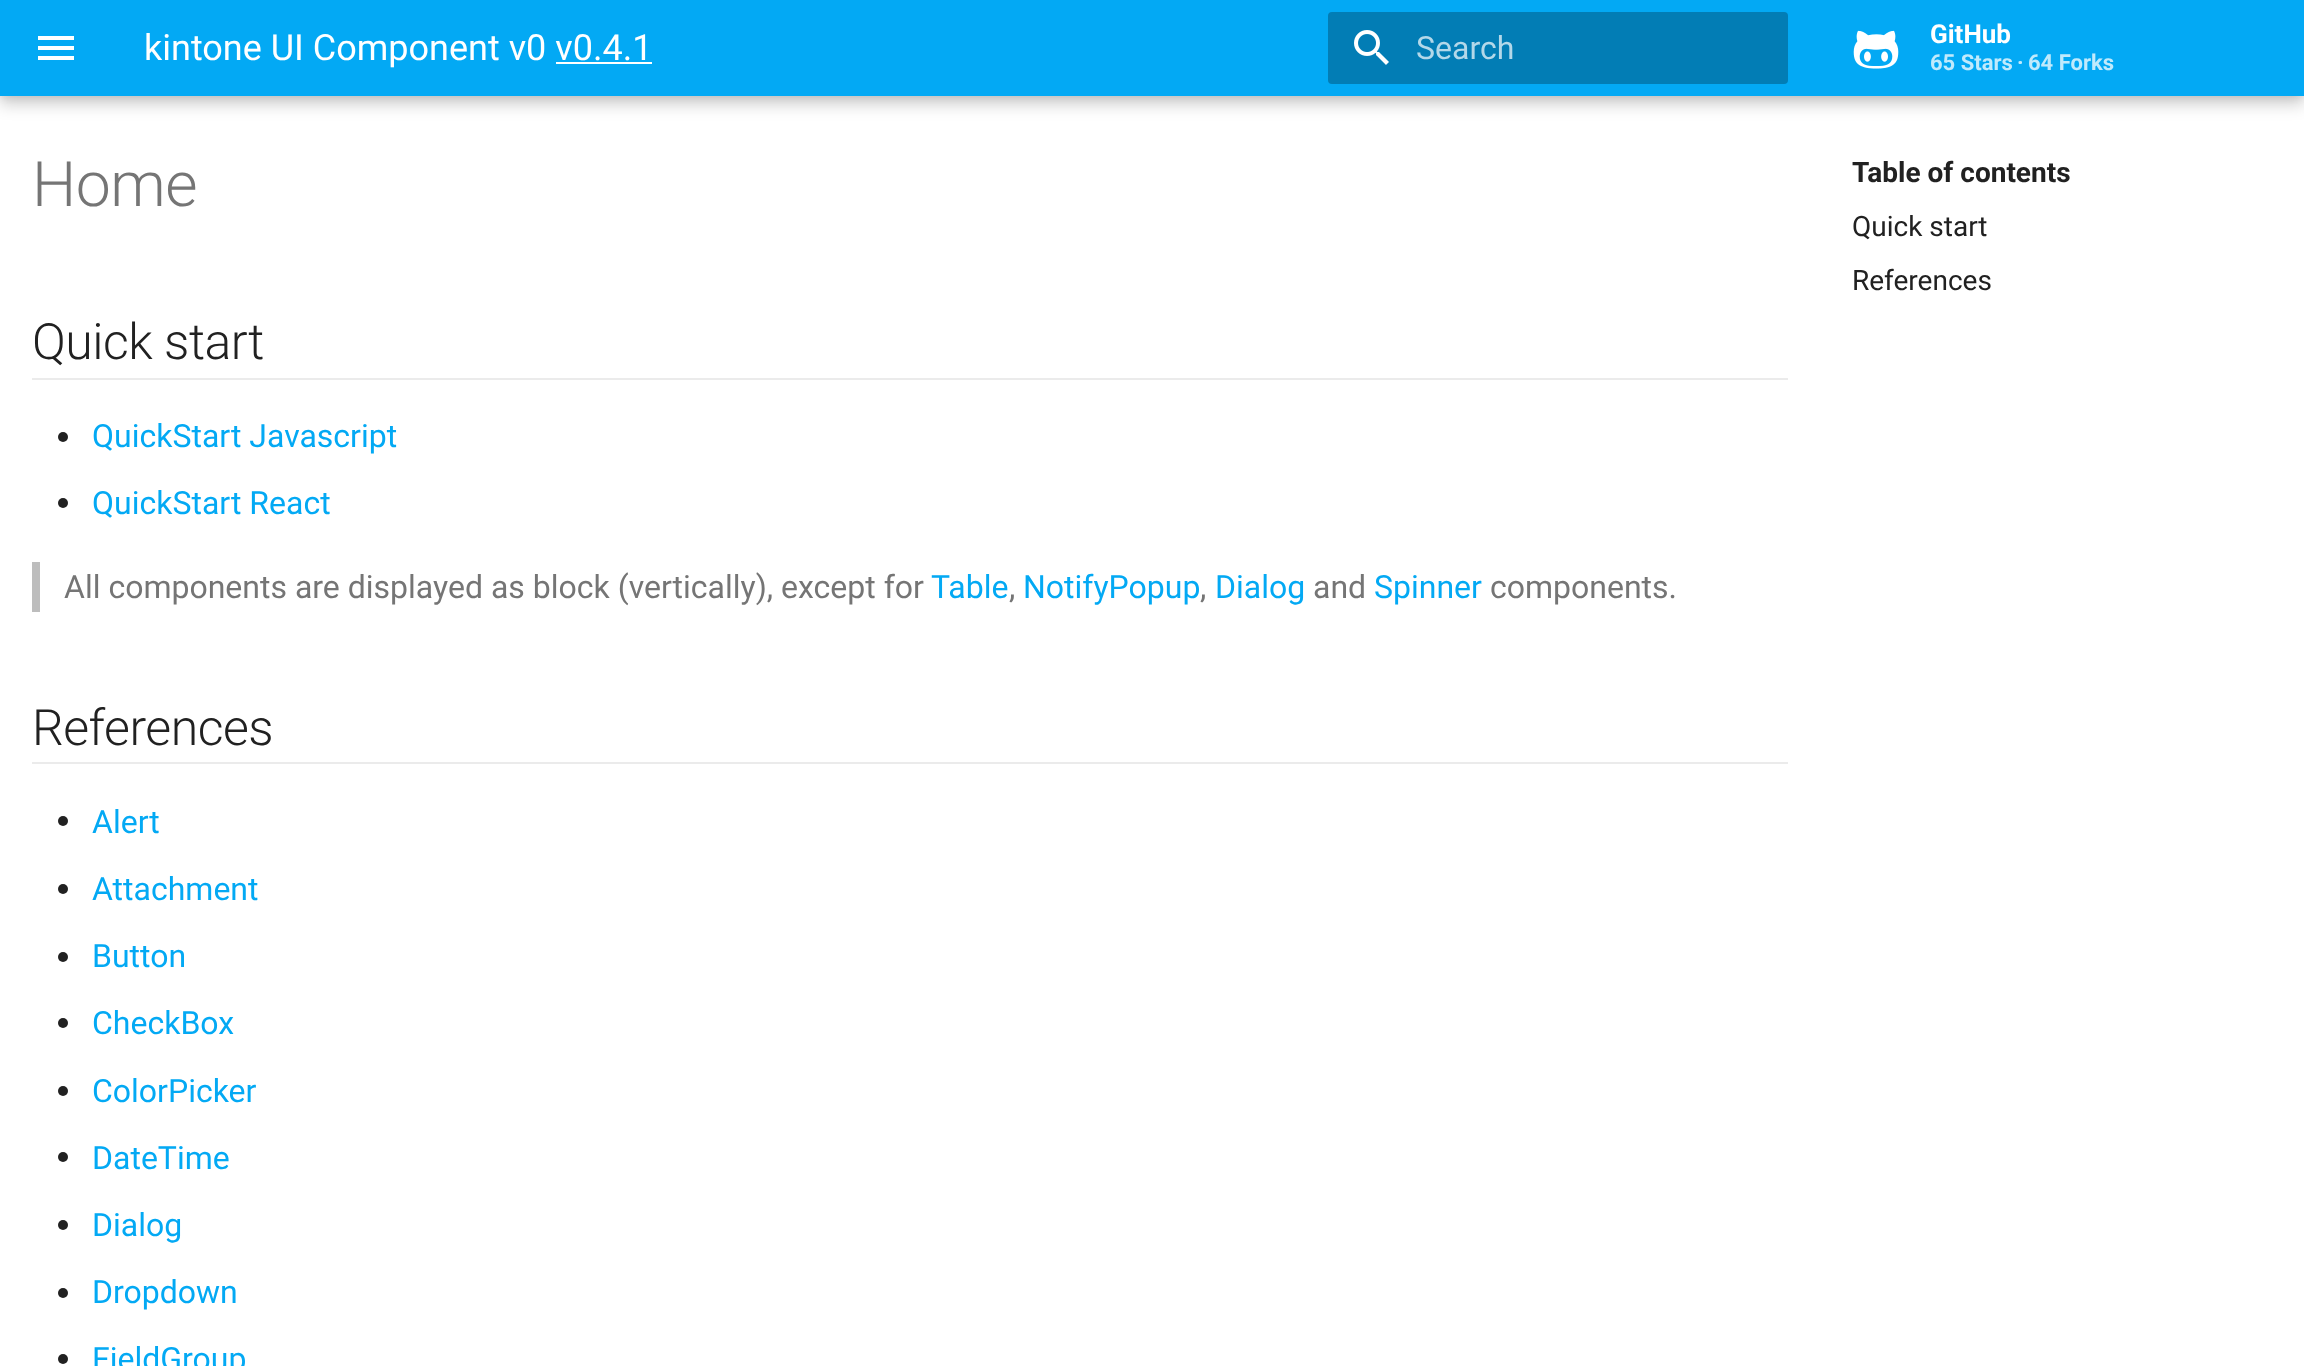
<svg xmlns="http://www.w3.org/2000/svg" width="2304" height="1366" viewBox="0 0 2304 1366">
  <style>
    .t1 { font: 36px Roboto; fill: #fff; }
    .t2 { font: 32px Roboto; fill: #b3d8e9; }
    .t3 { font: bold 26px Roboto; fill: #fff; }
    .t4 { font: bold 22px Roboto; fill: #c0eafc; }
    .t5 { font: 300 62.5px Roboto; letter-spacing: -0.5px; fill: #757575; }
    .t6 { font: 300 50px Roboto; letter-spacing: -0.5px; fill: #212121; }
    .t7 { font: 32px Roboto; fill: #03a9f4; }
    .t8 { font: 32px Roboto; fill: #757575; }
    .t9 { font: bold 28px Roboto; fill: #212121; }
    .t10 { font: 28px Roboto; fill: #212121; }
  </style>
  <rect width="100%" height="100%" fill="#fff"/>
  <rect x="0" y="8" width="2304" height="96" fill="#00000033" filter="blur(8px)"/>
  <rect x="0" y="0" width="2304" height="96" fill="#0000001a" filter="blur(4px)"/>
  <rect x="0" y="0" width="2304" height="96" fill="#03a9f4"/>
  <path d="M38 36H74V40H38ZM38 50V46H74V50ZM38 60V56H74V60Z" fill="#fff"/>
  <text x="144" y="60" class="t1">kintone UI Component v0 v0.4.1</text>
  <rect x="556" y="62" width="96" height="2" fill="#fff"/>
  <rect x="1328" y="12" width="460" height="72" rx="4" fill="#027db5"/>
  <image x="1354" y="30" width="35" height="35" href="images/1.png"/>
  <text x="1416" y="59" class="t2">Search</text>
  <image x="1853" y="30" width="46" height="39" href="images/2.png"/>
  <text x="1930" y="43" class="t3">GitHub</text>
  <text x="1930" y="70" class="t4">65 Stars</text>
  <text x="2017" y="70" class="t4">·</text>
  <text x="2028" y="70" class="t4">64 Forks</text>
  <text x="32" y="206" class="t5">Home</text>
  <rect x="32" y="378" width="1756" height="2" fill="#ebebeb"/>
  <text x="32" y="359" class="t6">Quick start</text>
  <circle cx="63" cy="437" r="5" fill="#212121"/>
  <text x="92" y="447" class="t7">QuickStart Javascript</text>
  <circle cx="63" cy="503" r="5" fill="#212121"/>
  <text x="92" y="514" class="t7">QuickStart React</text>
  <rect x="32" y="562" width="8" height="50" fill="#bdbdbd"/>
  <text x="64" y="598" class="t8">All components are displayed as block (vertically), except for</text>
  <text x="931" y="598" class="t7">Table</text>
  <text x="1009" y="598" class="t8">,</text>
  <text x="1023" y="598" class="t7">NotifyPopup</text>
  <text x="1200" y="598" class="t8">,</text>
  <text x="1215" y="598" class="t7">Dialog</text>
  <text x="1313" y="598" class="t8">and</text>
  <text x="1374" y="598" class="t7">Spinner</text>
  <text x="1490" y="598" class="t8">components.</text>
  <rect x="32" y="762" width="1756" height="2" fill="#ebebeb"/>
  <text x="32" y="745" class="t6">References</text>
  <circle cx="63" cy="821" r="5" fill="#212121"/>
  <text x="92" y="833" class="t7">Alert</text>
  <circle cx="63" cy="889" r="5" fill="#212121"/>
  <text x="92" y="900" class="t7">Attachment</text>
  <circle cx="63" cy="957" r="5" fill="#212121"/>
  <text x="92" y="967" class="t7">Button</text>
  <circle cx="63" cy="1023" r="5" fill="#212121"/>
  <text x="92" y="1034" class="t7">CheckBox</text>
  <circle cx="63" cy="1091" r="5" fill="#212121"/>
  <text x="92" y="1102" class="t7">ColorPicker</text>
  <circle cx="63" cy="1157" r="5" fill="#212121"/>
  <text x="92" y="1169" class="t7">DateTime</text>
  <circle cx="63" cy="1225" r="5" fill="#212121"/>
  <text x="92" y="1236" class="t7">Dialog</text>
  <circle cx="63" cy="1293" r="5" fill="#212121"/>
  <text x="92" y="1303" class="t7">Dropdown</text>
  <circle cx="63" cy="1359" r="5" fill="#212121"/>
  <text x="92" y="1370" class="t7">FieldGroup</text>
  <text x="1852" y="182" class="t9">Table of contents</text>
  <text x="1852" y="236" class="t10">Quick start</text>
  <text x="1852" y="290" class="t10">References</text>
</svg>
